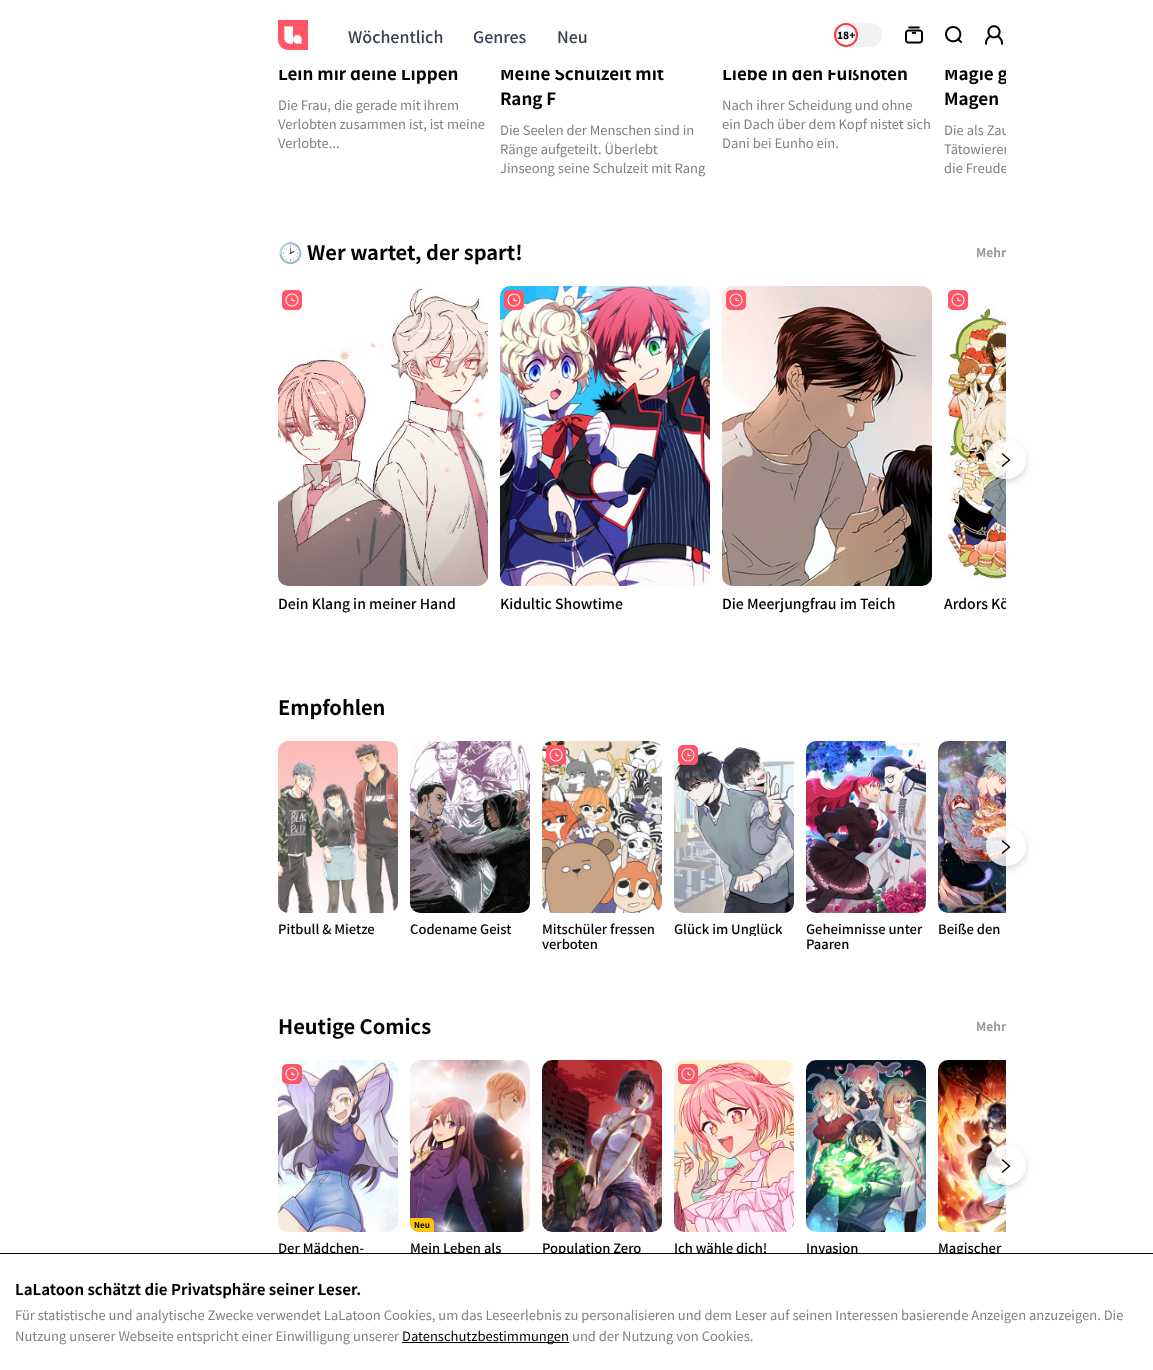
<svg xmlns="http://www.w3.org/2000/svg" width="1153" height="1370" viewBox="0 0 1153 1370">
  <style>
    .t1 { font: bold 17px Noto Sans SC; fill: #000; }
    .t2 { font: 500 16px Noto Sans SC; fill: #374151; }
    .t3 { font: 900 10px Noto Sans SC; fill: #000; }
    .t4 { font: 13px Noto Sans SC; fill: #808080; }
    .t5 { font: bold 20px Noto Color Emoji; fill: #000; }
    .t6 { font: bold 20px Noto Sans SC; fill: #000; }
    .t7 { font: bold 12px Noto Sans SC; fill: #999; }
    .t8 { font: 500 14px Noto Sans SC; fill: #000; }
    .t9 { font: 500 13px Noto Sans SC; fill: #000; }
    .t10 { font: bold 8px Noto Sans SC; fill: #000; }
    .t11 { font: bold 15px Noto Sans SC; fill: #000; }
    .t12 { font: 13px Noto Sans SC; fill: #000; }
  </style>
  <defs>
    <clipPath id="clip1"><rect x="944" y="60" width="62" height="50"/></clipPath>
    <clipPath id="clip2"><rect x="944" y="120" width="62" height="57"/></clipPath>
    <clipPath id="clip3"><path d="M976 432H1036V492H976ZM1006 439C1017 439 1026 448 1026 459C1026 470 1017 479 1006 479C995 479 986 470 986 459C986 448 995 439 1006 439Z" clip-rule="evenodd"/></clipPath>
    <clipPath id="clip4"><rect x="944" y="594" width="62" height="19"/></clipPath>
    <clipPath id="clip5"><path d="M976 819H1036V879H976ZM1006 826C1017 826 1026 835 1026 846C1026 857 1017 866 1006 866C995 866 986 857 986 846C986 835 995 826 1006 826Z" clip-rule="evenodd"/></clipPath>
    <clipPath id="clip6"><rect x="674" y="921" width="120" height="15"/></clipPath>
    <clipPath id="clip7"><path d="M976 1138H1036V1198H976ZM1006 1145C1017 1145 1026 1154 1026 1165C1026 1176 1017 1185 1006 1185C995 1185 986 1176 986 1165C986 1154 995 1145 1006 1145Z" clip-rule="evenodd"/></clipPath>
  </defs>
  <rect width="100%" height="100%" fill="#fff"/>
  <text x="278" y="80" class="t1">Leih mir deine Lippen</text>
  <text x="500" y="80" class="t1">Meine Schulzeit mit</text>
  <text x="722" y="80" class="t1">Liebe in den Fußnoten</text>
  <g clip-path="url(#clip1)">
    <text x="944" y="80" class="t1">Magie g</text>
  </g>
  <rect x="279" y="66" width="704" height="4" fill="#fff"/>
  <image x="278" y="20" width="30" height="30" href="images/1.png"/>
  <text x="348" y="43" class="t2">Wöchentlich</text>
  <text x="473" y="43" class="t2">Genres</text>
  <text x="557" y="43" class="t2">Neu</text>
  <rect x="834" y="23" width="48" height="24" rx="12" fill="#f2f2f2"/>
  <circle cx="846" cy="35" r="11" fill="#fff" stroke="#ff3b42" stroke-width="2"/>
  <text x="837" y="39" class="t3">18+</text>
  <image x="905" y="26" width="18" height="18" href="images/2.png"/>
  <image x="945" y="26" width="18" height="18" href="images/3.png"/>
  <image x="985" y="25" width="18" height="20" href="images/4.png"/>
  <text x="278" y="110" class="t4">Die Frau, die gerade mit ihrem</text>
  <text x="278" y="129" class="t4">Verlobten zusammen ist, ist meine</text>
  <text x="278" y="148" class="t4">Verlobte...</text>
  <text x="500" y="105" class="t1">Rang F</text>
  <text x="500" y="135" class="t4">Die Seelen der Menschen sind in</text>
  <text x="500" y="154" class="t4">Ränge aufgeteilt. Überlebt</text>
  <text x="500" y="173" class="t4">Jinseong seine Schulzeit mit Rang</text>
  <text x="722" y="110" class="t4">Nach ihrer Scheidung und ohne</text>
  <text x="722" y="129" class="t4">ein Dach über dem Kopf nistet sich</text>
  <text x="722" y="148" class="t4">Dani bei Eunho ein.</text>
  <text x="944" y="105" class="t1">Magen</text>
  <g clip-path="url(#clip2)">
    <text x="944" y="135" class="t4">Die als Zau</text>
    <text x="944" y="154" class="t4">Tätowierer</text>
    <text x="944" y="173" class="t4">die Freude</text>
  </g>
  <text x="278" y="260" class="t5">🕑</text>
  <text x="307" y="260" class="t6">Wer wartet, der spart!</text>
  <text x="976" y="257" class="t7">Mehr</text>
  <image x="944" y="305" width="62" height="274" href="images/11.png"/>
  <g clip-path="url(#clip3)">
    <rect x="986" y="442" width="40" height="40" rx="20" fill="#00000029" filter="blur(3px)"/>
  </g>
  <circle cx="1006" cy="459" r="20" fill="#ffffffcc"/>
  <path d="M1002.5 454L1009.5 460L1002.5 466" fill="none" stroke="#000" stroke-width="1.5" stroke-linecap="round" stroke-linejoin="round"/>
  <image x="278" y="286" width="210" height="300" href="images/5.png"/>
  <image x="282" y="290" width="20" height="20" href="images/6.png"/>
  <text x="278" y="609" class="t8">Dein Klang in meiner Hand</text>
  <image x="500" y="286" width="210" height="300" href="images/7.png"/>
  <image x="504" y="290" width="20" height="20" href="images/8.png"/>
  <text x="500" y="609" class="t8">Kidultic Showtime</text>
  <image x="722" y="286" width="210" height="300" href="images/9.png"/>
  <image x="726" y="290" width="20" height="20" href="images/10.png"/>
  <text x="722" y="609" class="t8">Die Meerjungfrau im Teich</text>
  <image x="948" y="290" width="20" height="20" href="images/6.png"/>
  <g clip-path="url(#clip4)">
    <text x="944" y="609" class="t8">Ardors Kö</text>
  </g>
  <text x="278" y="715" class="t6">Empfohlen</text>
  <image x="938" y="741" width="68" height="172" href="images/19.png"/>
  <g clip-path="url(#clip5)">
    <rect x="986" y="829" width="40" height="40" rx="20" fill="#00000029" filter="blur(3px)"/>
  </g>
  <circle cx="1006" cy="846" r="20" fill="#ffffffcc"/>
  <path d="M1002.5 841L1009.5 847L1002.5 853" fill="none" stroke="#000" stroke-width="1.5" stroke-linecap="round" stroke-linejoin="round"/>
  <image x="278" y="741" width="120" height="172" href="images/12.png"/>
  <text x="278" y="934" class="t9">Pitbull &amp; Mietze</text>
  <image x="410" y="741" width="120" height="172" href="images/13.png"/>
  <text x="410" y="934" class="t9">Codename Geist</text>
  <image x="542" y="741" width="120" height="172" href="images/14.png"/>
  <image x="546" y="745" width="20" height="20" href="images/15.png"/>
  <text x="542" y="934" class="t9">Mitschüler fressen</text>
  <text x="542" y="949" class="t9">verboten</text>
  <image x="674" y="747" width="120" height="166" href="images/17.png"/>
  <image x="678" y="745" width="20" height="20" href="images/16.png"/>
  <g clip-path="url(#clip6)">
    <text x="674" y="934" class="t9">Glück im Unglück</text>
  </g>
  <image x="806" y="741" width="120" height="172" href="images/18.png"/>
  <text x="806" y="934" class="t9">Geheimnisse unter</text>
  <text x="806" y="949" class="t9">Paaren</text>
  <text x="938" y="934" class="t9">Beiße den</text>
  <text x="278" y="1034" class="t6">Heutige Comics</text>
  <text x="976" y="1031" class="t7">Mehr</text>
  <image x="938" y="1060" width="68" height="172" href="images/27.png"/>
  <g clip-path="url(#clip7)">
    <rect x="986" y="1148" width="40" height="40" rx="20" fill="#00000029" filter="blur(3px)"/>
  </g>
  <circle cx="1006" cy="1165" r="20" fill="#ffffffcc"/>
  <path d="M1002.5 1160L1009.5 1166L1002.5 1172" fill="none" stroke="#000" stroke-width="1.5" stroke-linecap="round" stroke-linejoin="round"/>
  <image x="278" y="1060" width="120" height="172" href="images/20.png"/>
  <image x="282" y="1064" width="20" height="20" href="images/21.png"/>
  <text x="278" y="1253" class="t9">Der Mädchen-</text>
  <image x="410" y="1060" width="120" height="172" href="images/22.png"/>
  <path d="M410 1218H429C432 1218 434 1220 434 1223V1232H420C414.5 1232 410 1227.5 410 1222Z" fill="#ffc506"/>
  <text x="414" y="1228" class="t10">Neu</text>
  <text x="410" y="1253" class="t9">Mein Leben als</text>
  <image x="542" y="1060" width="120" height="172" href="images/23.png"/>
  <text x="542" y="1253" class="t9">Population Zero</text>
  <image x="674" y="1060" width="120" height="172" href="images/24.png"/>
  <image x="678" y="1064" width="20" height="20" href="images/25.png"/>
  <text x="674" y="1253" class="t9">Ich wähle dich!</text>
  <image x="806" y="1060" width="120" height="172" href="images/26.png"/>
  <text x="806" y="1253" class="t9">Invasion</text>
  <text x="938" y="1253" class="t9">Magischer</text>
  <rect x="559" y="1254" width="405" height="3" fill="#fff"/>
  <rect x="0" y="1253" width="1153" height="1" fill="#000"/>
  <text x="15" y="1295" class="t11">LaLatoon schätzt die Privatsphäre seiner Leser.</text>
  <text x="15" y="1320" class="t4">Für statistische und analytische Zwecke verwendet LaLatoon Cookies, um das Leseerlebnis zu personalisieren und dem Leser auf seinen Interessen basierende Anzeigen anzuzeigen. Die</text>
  <text x="15" y="1341" class="t4">Nutzung unserer Webseite entspricht einer Einwilligung unserer</text>
  <rect x="402" y="1342" width="167" height="1" fill="#000"/>
  <text x="402" y="1341" class="t12">Datenschutzbestimmungen</text>
  <text x="572" y="1341" class="t4">und der Nutzung von Cookies.</text>
</svg>
